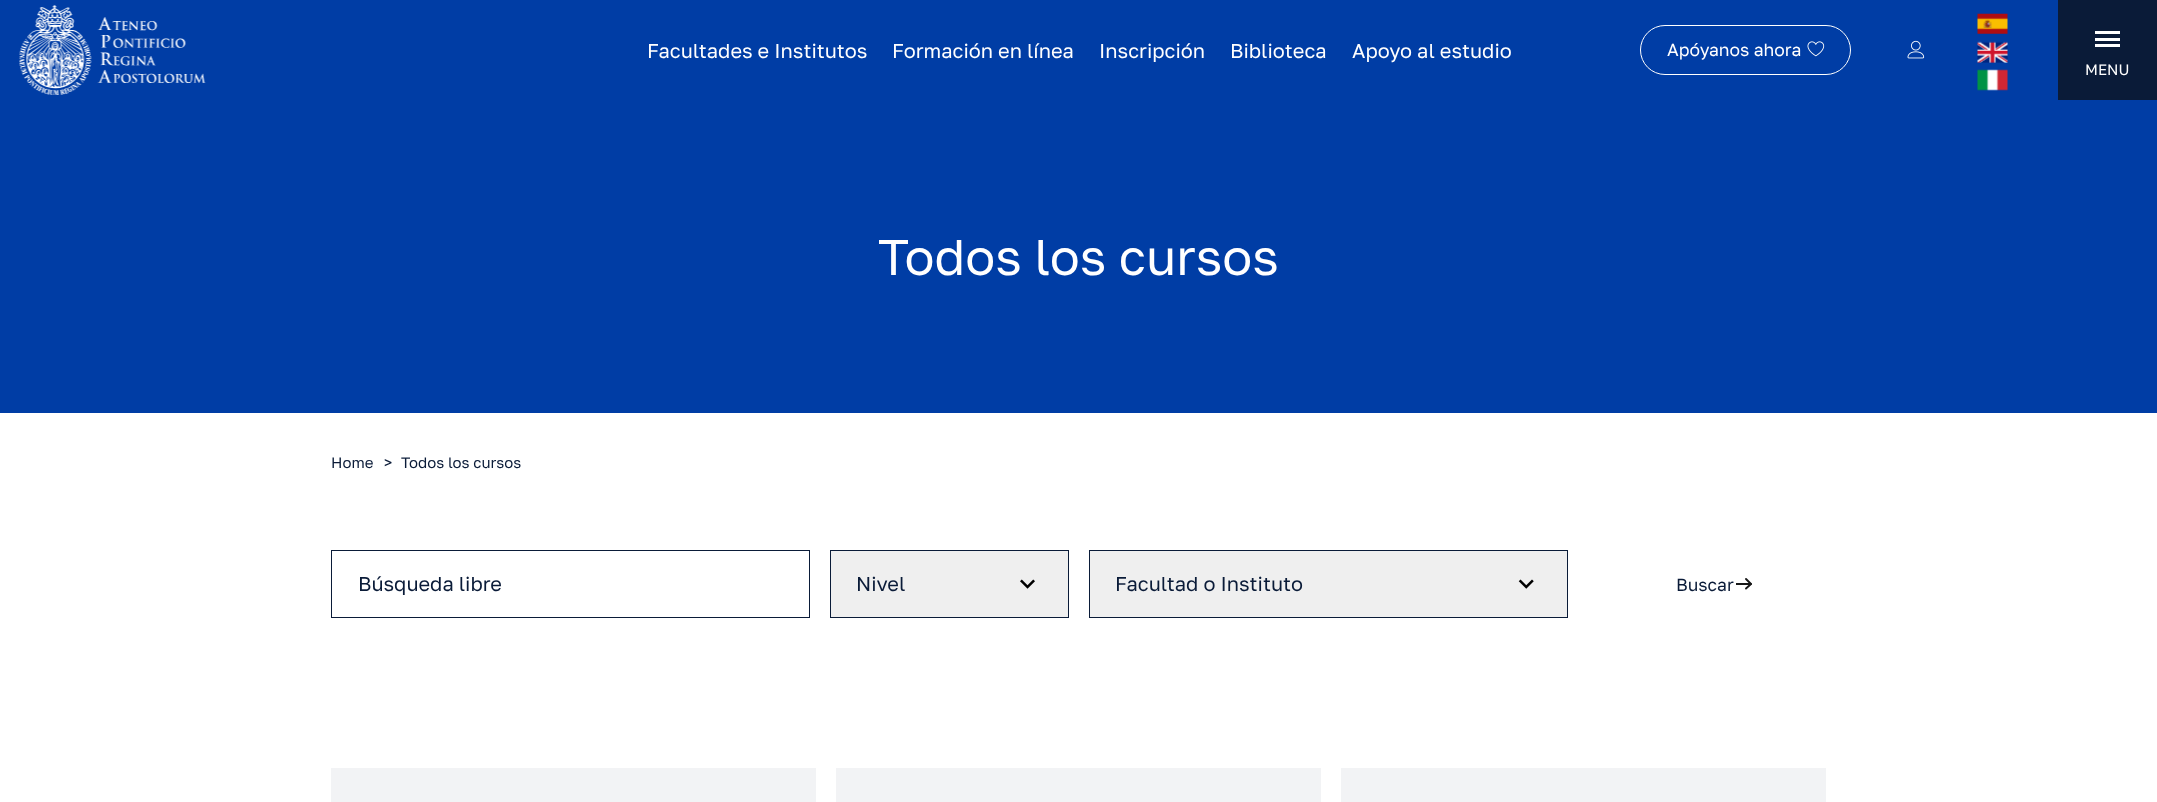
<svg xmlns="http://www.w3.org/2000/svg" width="2157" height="802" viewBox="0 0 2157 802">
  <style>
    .t1 { font: 20px Golos Text; fill: #fff; }
    .t2 { font: 17.5px Golos Text; fill: #fff; }
    .t3 { font: 15px Golos Text; fill: #fff; }
    .t4 { font: 50px Golos Text; fill: #fff; }
    .t5 { font: 15px Golos Text; fill: #0a1b38; }
    .t6 { font: 20px Golos Text; fill: #0a1b38; }
    .t7 { font: 17.5px Golos Text; fill: #0a1b38; }
  </style>
  <defs>
    <clipPath id="clip1"><rect x="1736" y="578" width="17" height="12"/></clipPath>
  </defs>
  <rect width="100%" height="100%" fill="#fff"/>
  <rect x="0" y="0" width="2058" height="100" fill="#003da5"/>
  <image x="19" y="5" width="187" height="90" href="images/1.png"/>
  <text x="647" y="58" class="t1">Facultades e Institutos</text>
  <text x="892" y="58" class="t1">Formación en línea</text>
  <text x="1099" y="58" class="t1">Inscripción</text>
  <text x="1230" y="58" class="t1">Biblioteca</text>
  <text x="1352" y="58" class="t1">Apoyo al estudio</text>
  <rect x="1640.5" y="25.5" width="210" height="49" rx="24.5" fill="none" stroke="#fff"/>
  <text x="1667" y="56" class="t2">Apóyanos ahora</text>
  <image x="1807" y="41" width="18" height="16" href="images/2.png"/>
  <image x="1907" y="40" width="18" height="19" href="images/3.png"/>
  <image x="1977" y="13" width="31" height="21" href="images/4.png"/>
  <image x="1977" y="41" width="31" height="22" href="images/5.png"/>
  <image x="1977" y="69" width="31" height="22" href="images/6.png"/>
  <rect x="2058" y="0" width="99" height="100" fill="#0a1b38"/>
  <rect x="2095" y="31" width="25" height="3" fill="#fff"/>
  <rect x="2095" y="38" width="25" height="3" fill="#fff"/>
  <rect x="2095" y="44" width="25" height="3" fill="#fff"/>
  <text x="2085" y="75" class="t3">MENU</text>
  <rect x="0" y="100" width="2157" height="313" fill="#003da5"/>
  <text x="878" y="275" class="t4">Todos los cursos</text>
  <text x="331" y="468" class="t5">Home</text>
  <text x="384" y="468" class="t5">&gt;</text>
  <text x="401" y="468" class="t5">Todos los cursos</text>
  <rect x="331.5" y="550.5" width="478" height="67" fill="none" stroke="#0a1b38"/>
  <text x="358" y="591" class="t6">Búsqueda libre</text>
  <rect x="831" y="551" width="237" height="66" fill="#efefef"/>
  <image x="1020" y="579" width="15" height="10" href="images/7.png"/>
  <rect x="830.5" y="550.5" width="238" height="67" fill="none" stroke="#0a1b38"/>
  <text x="856" y="591" class="t6">Nivel</text>
  <rect x="1090" y="551" width="477" height="66" fill="#efefef"/>
  <image x="1518" y="579" width="16" height="10" href="images/8.png"/>
  <rect x="1089.5" y="550.5" width="478" height="67" fill="none" stroke="#0a1b38"/>
  <text x="1115" y="591" class="t6">Facultad o Instituto</text>
  <text x="1676" y="591" class="t7">Buscar</text>
  <g clip-path="url(#clip1)">
    <path d="M1719 584H1751" fill="none" stroke="#171717" stroke-width="1.9" stroke-linecap="round" stroke-linejoin="round"/>
  </g>
  <path d="M1746 579L1751 584L1746 588.5" fill="none" stroke="#171717" stroke-width="1.9" stroke-linecap="round" stroke-linejoin="round"/>
  <rect x="331" y="768" width="485" height="34" fill="#f2f3f5"/>
  <rect x="836" y="768" width="485" height="34" fill="#f2f3f5"/>
  <rect x="1341" y="768" width="485" height="34" fill="#f2f3f5"/>
</svg>
